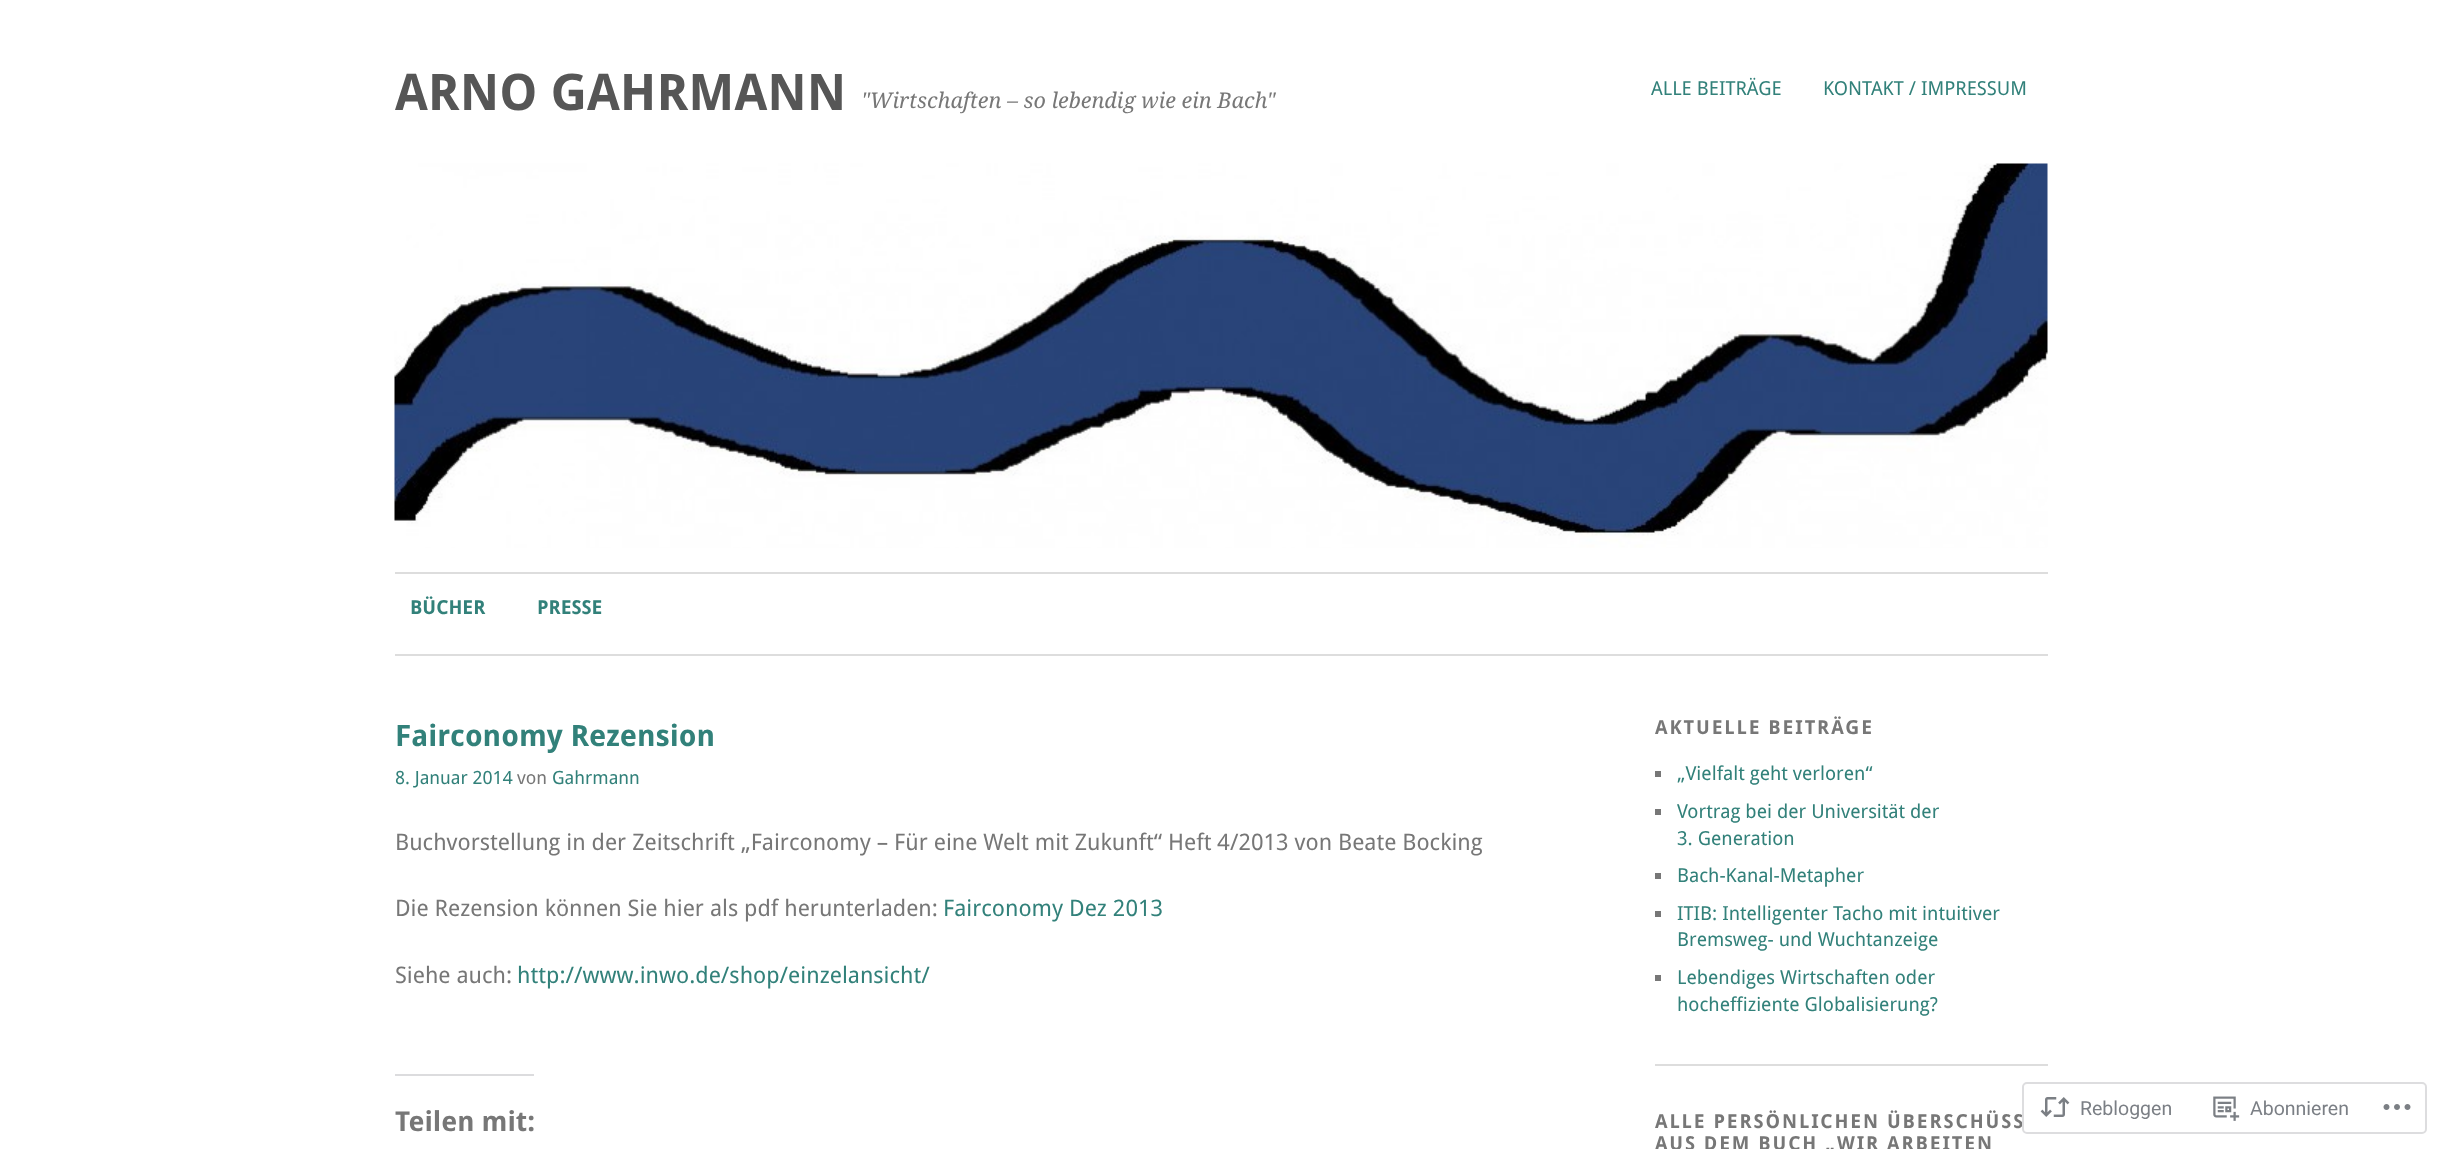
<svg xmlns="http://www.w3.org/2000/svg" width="2441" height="1149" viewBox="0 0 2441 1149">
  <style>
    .t1 { font: bold 50.5px Droid Sans; fill: #565656; }
    .t2 { font: italic 21.6px Droid Serif; fill: #777; }
    .t3 { font: 19.25px Droid Sans; fill: #32817a; }
    .t4 { font: bold 19.25px Droid Sans; fill: #32817a; }
    .t5 { font: bold 29.6px Droid Sans; fill: #32817a; }
    .t6 { font: 18.25px Droid Sans; fill: #32817a; }
    .t7 { font: 18.25px Droid Sans; fill: #777; }
    .t8 { font: 22.8px Droid Sans; fill: #777; }
    .t9 { font: 22.8px Droid Sans; fill: #32817a; }
    .t10 { font: bold 27.5px Droid Sans; fill: #777; }
    .t11 { font: bold 19.25px Droid Sans; letter-spacing: 1.9px; fill: #777; }
    .t12 { font: 19.5px Roboto; fill: #7b7f85; }
  </style>
  <rect width="100%" height="100%" fill="#fff"/>
  <text x="395" y="110" class="t1">ARNO GAHRMANN</text>
  <text x="861" y="108" class="t2">"Wirtschaften – so lebendig wie ein Bach"</text>
  <text x="1651" y="95" class="t3">ALLE BEITRÄGE</text>
  <text x="1823" y="95" class="t3">KONTAKT / IMPRESSUM</text>
  <image x="394" y="163" width="1654" height="385" href="images/1.png"/>
  <rect x="395" y="572" width="1653" height="2" fill="#ddd"/>
  <text x="410" y="614" class="t4">BÜCHER</text>
  <text x="537" y="614" class="t4">PRESSE</text>
  <rect x="395" y="654" width="1653" height="2" fill="#ddd"/>
  <text x="395" y="746" class="t5">Fairconomy Rezension</text>
  <text x="395" y="784" class="t6">8. Januar 2014</text>
  <text x="517" y="784" class="t7">von</text>
  <text x="552" y="784" class="t6">Gahrmann</text>
  <text x="395" y="850" class="t8">Buchvorstellung in der Zeitschrift „Fairconomy – Für eine Welt mit Zukunft“ Heft 4/2013 von Beate Bocking</text>
  <text x="395" y="916" class="t8">Die Rezension können Sie hier als pdf herunterladen:</text>
  <text x="943" y="916" class="t9">Fairconomy Dez 2013</text>
  <text x="395" y="983" class="t8">Siehe auch:</text>
  <text x="517" y="983" class="t9">http://www.inwo.de/shop/einzelansicht/</text>
  <rect x="395" y="1074" width="139" height="2" fill="#dcdcde"/>
  <text x="395" y="1131" class="t10">Teilen mit:</text>
  <rect x="1655" y="1064" width="393" height="2" fill="#ddd"/>
  <text x="1655" y="734" class="t11">AKTUELLE BEITRÄGE</text>
  <rect x="1655" y="771" width="6" height="6" fill="#777"/>
  <text x="1677" y="780" class="t3">„Vielfalt geht verloren“</text>
  <rect x="1655" y="809" width="6" height="6" fill="#777"/>
  <text x="1677" y="818" class="t3">Vortrag bei der Universität der</text>
  <text x="1677" y="845" class="t3">3. Generation</text>
  <rect x="1655" y="873" width="6" height="6" fill="#777"/>
  <text x="1677" y="882" class="t3">Bach-Kanal-Metapher</text>
  <rect x="1655" y="911" width="6" height="6" fill="#777"/>
  <text x="1677" y="920" class="t3">ITIB: Intelligenter Tacho mit intuitiver</text>
  <text x="1677" y="946" class="t3">Bremsweg- und Wuchtanzeige</text>
  <rect x="1655" y="975" width="6" height="6" fill="#777"/>
  <text x="1677" y="984" class="t3">Lebendiges Wirtschaften oder</text>
  <text x="1677" y="1011" class="t3">hocheffiziente Globalisierung?</text>
  <text x="1655" y="1128" class="t11">ALLE PERSÖNLICHEN ÜBERSCHÜSS</text>
  <text x="1655" y="1150" class="t11">AUS DEM BUCH „WIR ARBEITEN</text>
  <rect x="2023" y="1083" width="403" height="50" rx="4" fill="none" stroke="#dddddf" stroke-width="2"/>
  <image x="2040" y="1097" width="30" height="20" href="images/2.png"/>
  <text x="2080" y="1115" class="t12">Rebloggen</text>
  <image x="2213" y="1096" width="27" height="25" href="images/3.png"/>
  <text x="2250" y="1115" class="t12">Abonnieren</text>
  <image x="2383" y="1104" width="28" height="6" href="images/4.png"/>
</svg>
